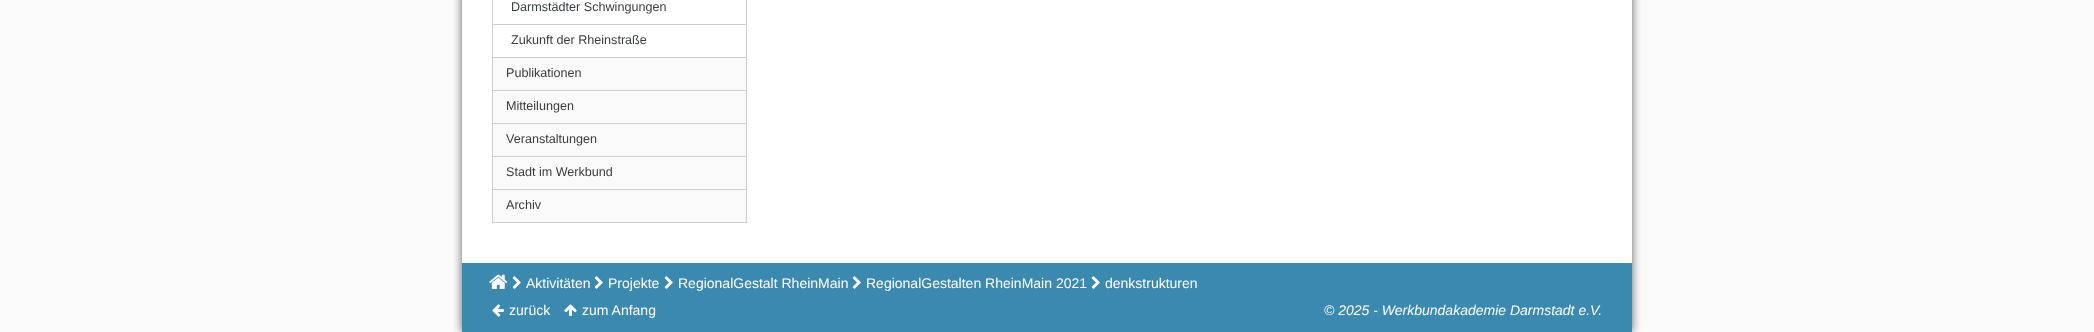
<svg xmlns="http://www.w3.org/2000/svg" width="2094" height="332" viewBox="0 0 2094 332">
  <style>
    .t1 { font: 12.6px Liberation Sans; fill: #383e41; }
    .t2 { font: 14px Liberation Sans; fill: #fff; }
    .t3 { font: italic 14px Liberation Sans; fill: #fff; }
  </style>
  <rect width="100%" height="100%" fill="#fafafa"/>
  <rect x="462" y="-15" width="1170" height="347" fill="#5d5d5d" filter="blur(5px)"/>
  <rect x="462" y="0" width="1170" height="263" fill="#fff"/>
  <rect x="493" y="58" width="253" height="164" fill="#fafafa"/>
  <rect x="492.5" y="-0.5" width="254" height="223" fill="none" stroke="#cdcdcd"/>
  <text x="511" y="11" class="t1">Darmstädter Schwingungen</text>
  <rect x="493" y="24" width="253" height="1" fill="#cdcdcd"/>
  <text x="511" y="44" class="t1">Zukunft der Rheinstraße</text>
  <rect x="493" y="57" width="253" height="1" fill="#cdcdcd"/>
  <text x="506" y="77" class="t1">Publikationen</text>
  <rect x="493" y="90" width="253" height="1" fill="#cdcdcd"/>
  <text x="506" y="110" class="t1">Mitteilungen</text>
  <rect x="493" y="123" width="253" height="1" fill="#cdcdcd"/>
  <text x="506" y="143" class="t1">Veranstaltungen</text>
  <rect x="493" y="156" width="253" height="1" fill="#cdcdcd"/>
  <text x="506" y="176" class="t1">Stadt im Werkbund</text>
  <rect x="493" y="189" width="253" height="1" fill="#cdcdcd"/>
  <text x="506" y="209" class="t1">Archiv</text>
  <rect x="462" y="263" width="1170" height="69" fill="#3b89af"/>
  <image x="489" y="274" width="19" height="15" href="images/1.png"/>
  <image x="512" y="276" width="9" height="13" href="images/2.png"/>
  <text x="526" y="288" class="t2">Aktivitäten</text>
  <image x="594" y="276" width="9" height="13" href="images/2.png"/>
  <text x="608" y="288" class="t2">Projekte</text>
  <image x="664" y="276" width="9" height="13" href="images/2.png"/>
  <text x="678" y="288" class="t2">RegionalGestalt RheinMain</text>
  <image x="852" y="276" width="9" height="13" href="images/2.png"/>
  <text x="866" y="288" class="t2">RegionalGestalten RheinMain 2021</text>
  <image x="1091" y="276" width="9" height="13" href="images/2.png"/>
  <text x="1105" y="288" class="t2">denkstrukturen</text>
  <image x="492" y="304" width="12" height="13" href="images/3.png"/>
  <text x="509" y="315" class="t2">zurück</text>
  <image x="564" y="304" width="13" height="12" href="images/4.png"/>
  <text x="582" y="315" class="t2">zum Anfang</text>
  <text x="1324" y="315" class="t3">© 2025 - Werkbundakademie Darmstadt e.V.</text>
</svg>
